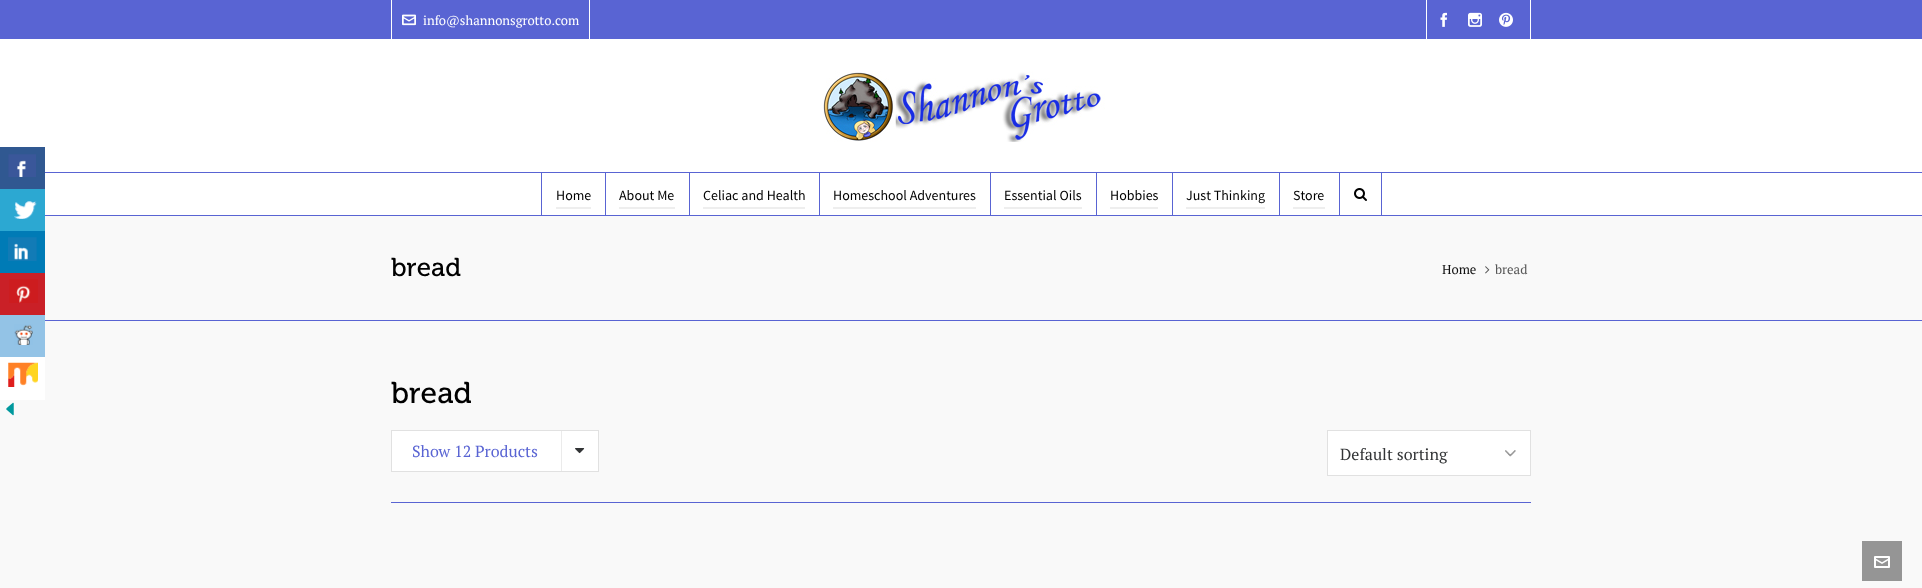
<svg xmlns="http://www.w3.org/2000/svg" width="1922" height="588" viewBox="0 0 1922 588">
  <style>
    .t1 { font: 13px PT Serif; fill: #fff; }
    .t2 { font: 14px Source Sans Pro; fill: #000; }
    .t3 { font: 26px 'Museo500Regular'; fill: #000; }
    .t4 { font: 13px PT Serif; fill: #111; }
    .t5 { font: 13px PT Serif; fill: #575757; }
    .t6 { font: 30px 'Museo500Regular'; fill: #000; }
    .t7 { font: 16px PT Serif; fill: #5964d3; }
    .t8 { font: 16px PT Serif; fill: #323436; }
  </style>
  <rect width="100%" height="100%" fill="#f9f9f9"/>
  <rect x="0" y="39" width="1922" height="176" fill="#fff"/>
  <rect x="0" y="147" width="45" height="42" fill="#305891"/>
  <image x="8" y="154" width="28" height="23" href="images/1.png"/>
  <rect x="0" y="189" width="45" height="42" fill="#2ca8d2"/>
  <image x="14" y="201" width="23" height="18" href="images/2.png"/>
  <rect x="0" y="231" width="45" height="42" fill="#007bb6"/>
  <image x="8" y="237" width="29" height="24" href="images/3.png"/>
  <rect x="0" y="273" width="45" height="42" fill="#ca2027"/>
  <image x="9" y="279" width="29" height="24" href="images/4.png"/>
  <rect x="0" y="315" width="45" height="42" fill="#93c3e6"/>
  <image x="14" y="324" width="19" height="21" href="images/5.png"/>
  <rect x="0" y="357" width="45" height="43" fill="#fff"/>
  <image x="8" y="362" width="30" height="25" href="images/6.png"/>
  <image x="6" y="402" width="8" height="14" href="images/7.png"/>
  <rect x="0" y="0" width="1922" height="39" fill="#5964d3"/>
  <rect x="589" y="0" width="1" height="40" fill="#fff"/>
  <rect x="391" y="0" width="1" height="40" fill="#fff"/>
  <image x="402" y="14" width="14" height="12" href="images/8.png"/>
  <text x="423" y="25" class="t1">info@shannonsgrotto.com</text>
  <rect x="1530" y="0" width="1" height="40" fill="#fff"/>
  <rect x="1426" y="0" width="1" height="40" fill="#fff"/>
  <image x="1440" y="12" width="7" height="15" href="images/9.png"/>
  <image x="1468" y="12" width="14" height="15" href="images/10.png"/>
  <image x="1499" y="12" width="14" height="15" href="images/11.png"/>
  <rect x="45" y="215" width="1877" height="1" fill="#5964d3"/>
  <image x="820" y="71" width="285" height="71" href="images/12.png"/>
  <rect x="45" y="172" width="1877" height="1" fill="#5964d3"/>
  <rect x="605" y="173" width="1" height="42" fill="#5964d3"/>
  <rect x="541" y="173" width="1" height="42" fill="#5964d3"/>
  <text x="556" y="200" class="t2">Home</text>
  <rect x="556" y="207" width="35" height="2" fill="#eee"/>
  <rect x="689" y="173" width="1" height="42" fill="#5964d3"/>
  <text x="619" y="200" class="t2">About Me</text>
  <rect x="619" y="207" width="56" height="2" fill="#eee"/>
  <rect x="819" y="173" width="1" height="42" fill="#5964d3"/>
  <text x="703" y="200" class="t2">Celiac and Health</text>
  <rect x="703" y="207" width="102" height="2" fill="#eee"/>
  <rect x="990" y="173" width="1" height="42" fill="#5964d3"/>
  <text x="833" y="200" class="t2">Homeschool Adventures</text>
  <rect x="833" y="207" width="143" height="2" fill="#eee"/>
  <rect x="1096" y="173" width="1" height="42" fill="#5964d3"/>
  <text x="1004" y="200" class="t2">Essential Oils</text>
  <rect x="1004" y="207" width="78" height="2" fill="#eee"/>
  <rect x="1172" y="173" width="1" height="42" fill="#5964d3"/>
  <text x="1110" y="200" class="t2">Hobbies</text>
  <rect x="1110" y="207" width="48" height="2" fill="#eee"/>
  <rect x="1279" y="173" width="1" height="42" fill="#5964d3"/>
  <text x="1186" y="200" class="t2">Just Thinking</text>
  <rect x="1186" y="207" width="79" height="2" fill="#eee"/>
  <rect x="1339" y="173" width="1" height="42" fill="#5964d3"/>
  <text x="1293" y="200" class="t2">Store</text>
  <rect x="1293" y="207" width="32" height="2" fill="#eee"/>
  <rect x="1381" y="173" width="1" height="42" fill="#5964d3"/>
  <image x="1354" y="188" width="13" height="13" href="images/13.png"/>
  <rect x="45" y="320" width="1877" height="1" fill="#5964d3"/>
  <text x="391" y="276" class="t3">bread</text>
  <text x="1442" y="274" class="t4">Home</text>
  <image x="1485" y="266" width="5" height="8" href="images/14.png"/>
  <text x="1495" y="274" class="t5">bread</text>
  <text x="391" y="403" class="t6">bread</text>
  <rect x="391.5" y="430.5" width="207" height="41" fill="#fff" stroke="#e1e1e1"/>
  <text x="412" y="457" class="t7">Show 12 Products</text>
  <rect x="561" y="431" width="1" height="40" fill="#ebebeb"/>
  <image x="575" y="448" width="10" height="6" href="images/15.png"/>
  <rect x="1328" y="431" width="202" height="44" fill="#fff"/>
  <image x="1505" y="450" width="11" height="7" href="images/16.png"/>
  <rect x="1327.5" y="430.5" width="203" height="45" fill="none" stroke="#e1e1e1"/>
  <text x="1340" y="460" class="t8">Default sorting</text>
  <rect x="391" y="502" width="1140" height="1" fill="#5964d3"/>
  <rect x="1862" y="541" width="40" height="40" fill="#959595"/>
  <image x="1874" y="556" width="16" height="12" href="images/17.png"/>
</svg>
